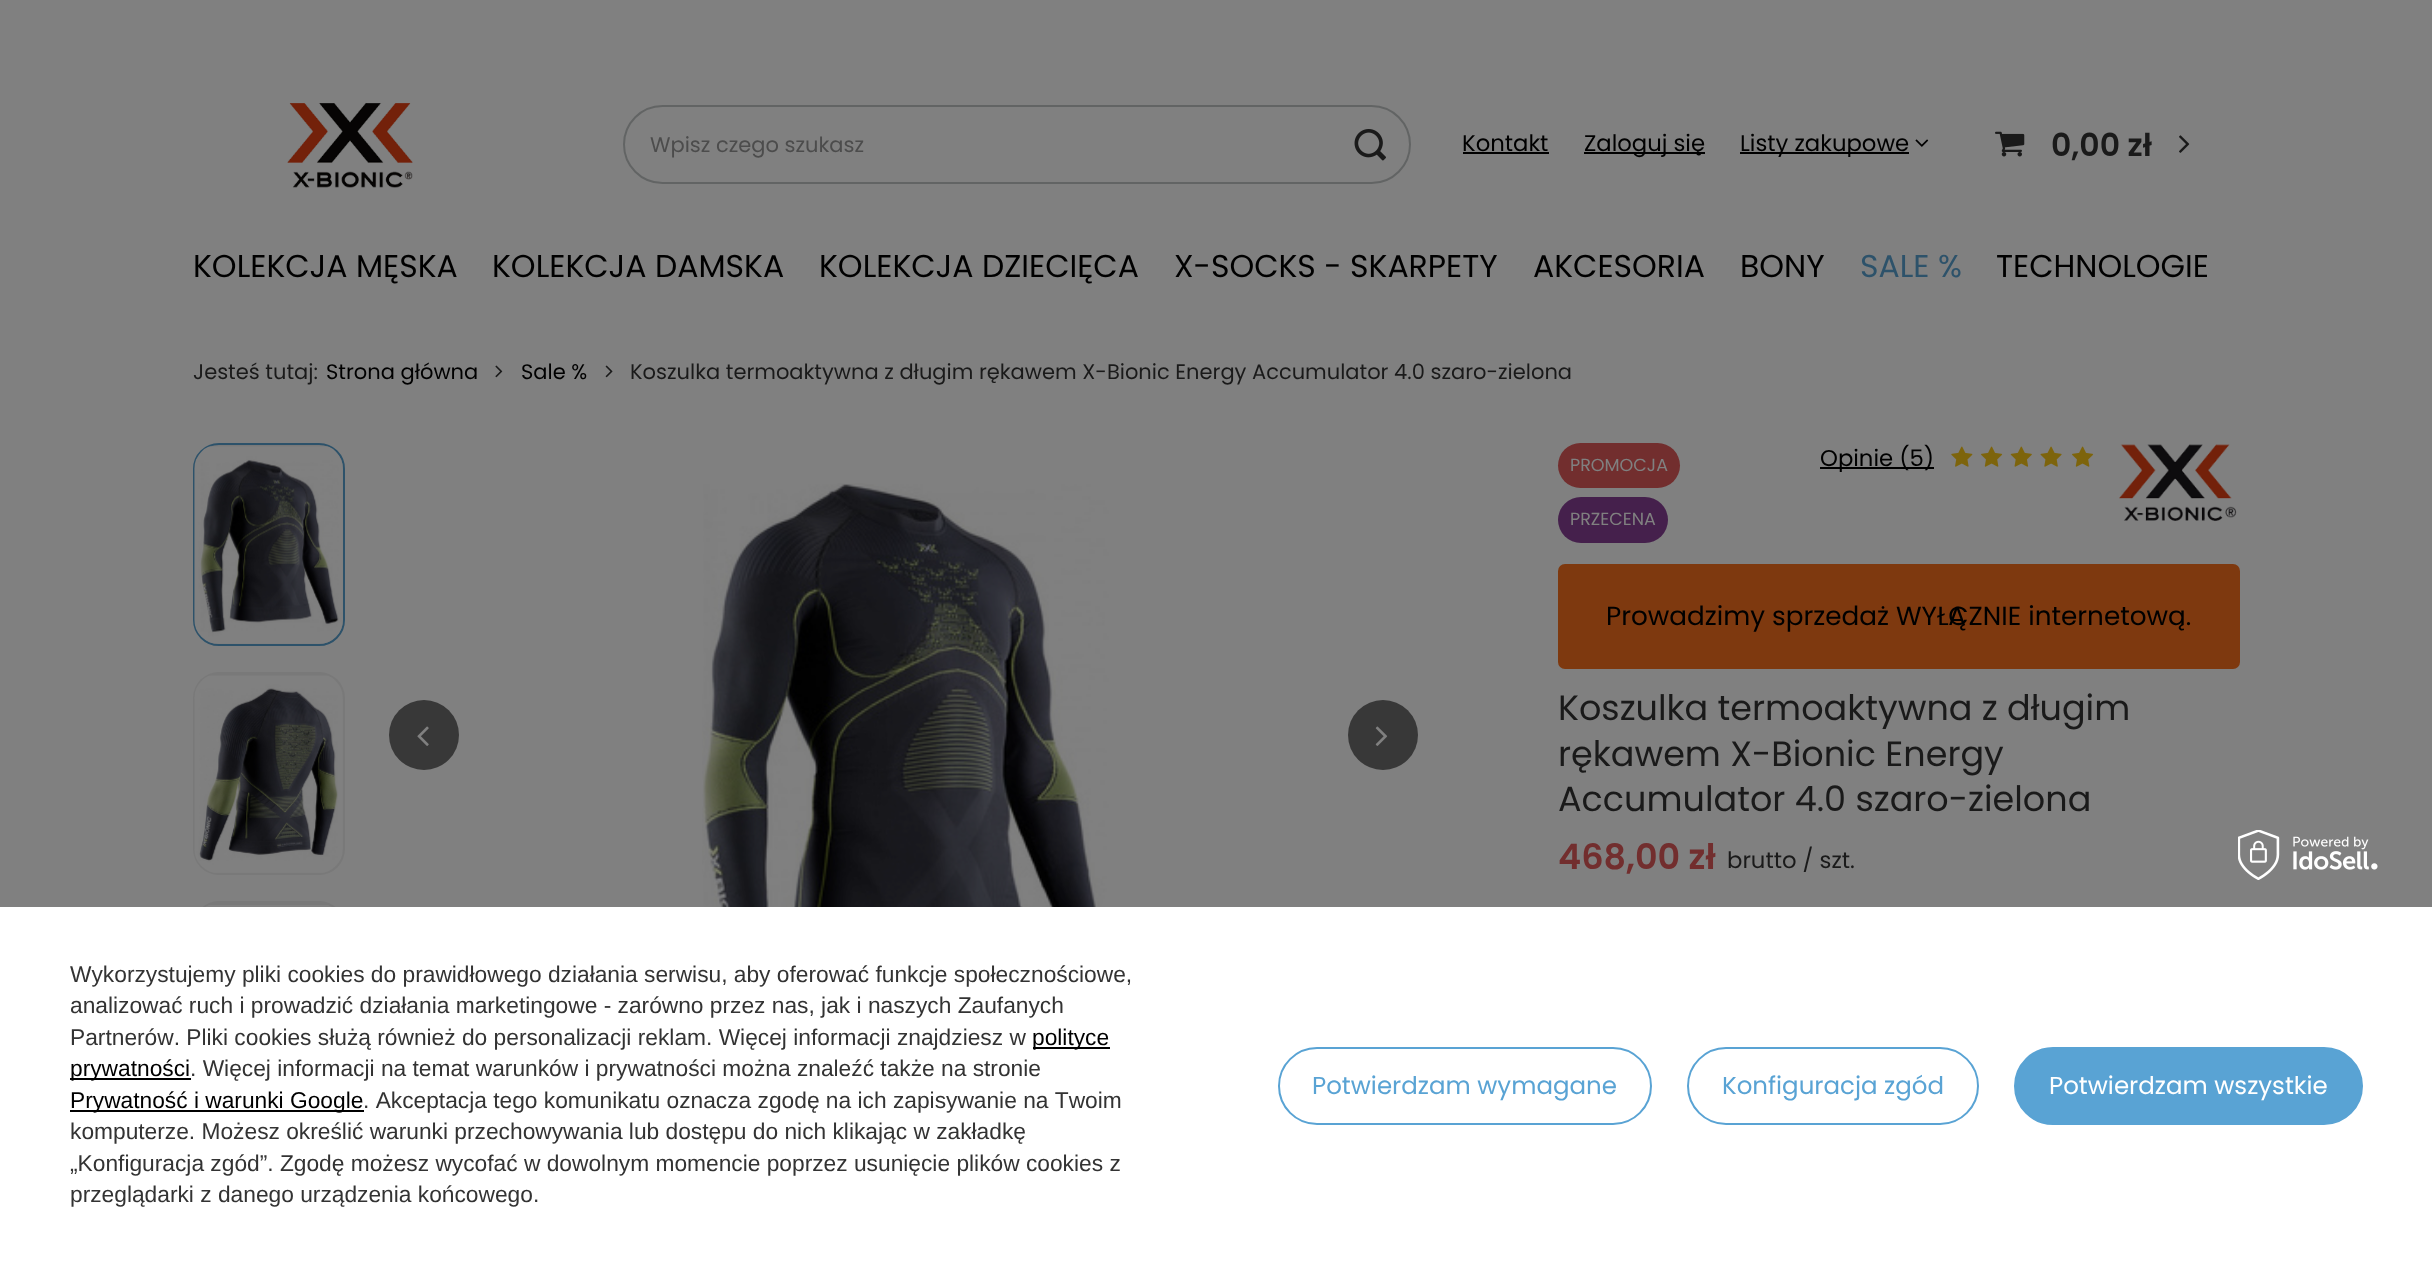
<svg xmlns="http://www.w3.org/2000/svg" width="2432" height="1262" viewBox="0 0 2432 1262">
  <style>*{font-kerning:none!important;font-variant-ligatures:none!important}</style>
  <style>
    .t1 { font: 21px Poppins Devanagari; fill: #4c4c4c; }
    .t2 { font: 22.75px Poppins Devanagari; fill: #000; }
    .t3 { font: 600 31.5px Poppins Devanagari; fill: #1a1a1a; }
    .t4 { font: 31.5px Poppins Devanagari; fill: #000; }
    .t5 { font: 31.5px Poppins Devanagari; fill: #2d526a; }
    .t6 { font: 21px Poppins Devanagari; fill: #1a1a1a; }
    .t7 { font: 21px Poppins Devanagari; fill: #000; }
    .t8 { font: 17.5px Poppins Devanagari; fill: #808080; }
    .t9 { font: 26.25px Poppins Devanagari; fill: #000; }
    .t10 { font: 35px Poppins Devanagari; fill: #1a1a1a; }
    .t11 { font: 600 35px Poppins Devanagari; fill: #722e2e; }
    .t12 { font: 22.75px Poppins Devanagari; fill: #1a1a1a; }
    .t13 { font: 22.75px Liberation Sans; fill: #333; }
    .t14 { font: 22.75px Liberation Sans; fill: #000; }
    .t15 { font: 24.5px Poppins Devanagari; fill: #59a3d4; }
    .t16 { font: 24.5px Poppins Devanagari; fill: #fff; }
  </style>
  <rect width="100%" height="100%" fill="#808080"/>
  <image x="287" y="103" width="126" height="85" href="images/1.png"/>
  <rect x="624" y="106" width="786" height="77" rx="38.5" fill="none" stroke="#626464" stroke-width="2"/>
  <text x="650" y="152" class="t1">Wpisz czego szukasz</text>
  <image x="1354" y="129" width="32" height="32" href="images/2.png"/>
  <text x="1462" y="151" class="t2">Kontakt</text>
  <rect x="1463" y="152" width="86" height="2" fill="#000"/>
  <rect x="1584" y="152" width="121" height="2" fill="#000"/>
  <text x="1584" y="151" class="t2">Zaloguj się</text>
  <rect x="1740" y="152" width="169" height="2" fill="#000"/>
  <text x="1740" y="151" class="t2">Listy zakupowe</text>
  <image x="1915" y="139" width="14" height="8" href="images/3.png"/>
  <image x="1995" y="131" width="30" height="26" href="images/4.png"/>
  <text x="2051" y="156" class="t3">0,00 zł</text>
  <image x="2179" y="135" width="11" height="18" href="images/5.png"/>
  <text x="193" y="277" class="t4">KOLEKCJA MĘSKA</text>
  <text x="492" y="277" class="t4">KOLEKCJA DAMSKA</text>
  <text x="819" y="277" class="t4">KOLEKCJA DZIECIĘCA</text>
  <text x="1174" y="277" class="t4">X-SOCKS - SKARPETY</text>
  <text x="1533" y="277" class="t4">AKCESORIA</text>
  <text x="1740" y="277" class="t4">BONY</text>
  <text x="1860" y="277" class="t5">SALE %</text>
  <text x="1996" y="277" class="t4">TECHNOLOGIE</text>
  <text x="193" y="379" class="t6">Jesteś tutaj:</text>
  <text x="326" y="379" class="t7">Strona główna</text>
  <image x="495" y="365" width="8" height="13" href="images/6.png"/>
  <text x="521" y="379" class="t7">Sale %</text>
  <image x="605" y="365" width="8" height="13" href="images/7.png"/>
  <text x="630" y="379" class="t6">Koszulka termoaktywna z długim rękawem X-Bionic Energy Accumulator 4.0 szaro-zielona</text>
  <rect x="194" y="444" width="150" height="201" rx="25" fill="#797979" stroke="#2d526a" stroke-width="2"/>
  <image x="194" y="445" width="149" height="199" href="images/8.png"/>
  <rect x="193" y="672" width="152" height="203" rx="26" fill="#797979"/>
  <image x="194" y="675" width="149" height="198" href="images/9.png"/>
  <rect x="193" y="901" width="152" height="203" rx="26" fill="#797979"/>
  <image x="205" y="905" width="127" height="2" href="images/10.png"/>
  <image x="702" y="483" width="412" height="424" href="images/11.png"/>
  <circle cx="424" cy="735" r="35" fill="#383838"/>
  <image x="417" y="726" width="12" height="20" href="images/12.png"/>
  <circle cx="1383" cy="735" r="35" fill="#383838"/>
  <image x="1375" y="726" width="13" height="20" href="images/13.png"/>
  <rect x="1558" y="443" width="122" height="45" rx="22.5" fill="#722e2e"/>
  <text x="1570" y="471" class="t8">PROMOCJA</text>
  <rect x="1558" y="497" width="110" height="46" rx="23" fill="#45204c"/>
  <text x="1570" y="525" class="t8">PRZECENA</text>
  <rect x="1820" y="467" width="114" height="2" fill="#000"/>
  <text x="1820" y="466" class="t2">Opinie (5)</text>
  <image x="1951" y="446" width="22" height="21" href="images/14.png"/>
  <image x="1981" y="446" width="22" height="21" href="images/15.png"/>
  <image x="2010" y="446" width="22" height="21" href="images/16.png"/>
  <image x="2040" y="446" width="22" height="21" href="images/17.png"/>
  <image x="2072" y="446" width="22" height="21" href="images/15.png"/>
  <image x="2119" y="444" width="118" height="78" href="images/18.png"/>
  <rect x="1558" y="564" width="682" height="105" rx="7" fill="#7e390f"/>
  <text x="1606" y="625" class="t9">Prowadzimy sprzedaż WYŁĄCZNIE internetową.</text>
  <text x="1558" y="720" class="t10">Koszulka termoaktywna z długim</text>
  <text x="1558" y="766" class="t10">rękawem X-Bionic Energy</text>
  <text x="1558" y="811" class="t10">Accumulator 4.0 szaro-zielona</text>
  <text x="1558" y="869" class="t11">468,00 zł</text>
  <text x="1727" y="868" class="t12">brutto / szt.</text>
  <rect x="0" y="907" width="2432" height="355" fill="#fff"/>
  <image x="2238" y="830" width="140" height="50" href="images/19.png"/>
  <text x="70" y="982" class="t13">Wykorzystujemy pliki cookies do prawidłowego działania serwisu, aby oferować funkcje społecznościowe,</text>
  <text x="70" y="1013" class="t13">analizować ruch i prowadzić działania marketingowe - zarówno przez nas, jak i naszych Zaufanych</text>
  <text x="70" y="1045" class="t13">Partnerów. Pliki cookies służą również do personalizacji reklam. Więcej informacji znajdziesz w</text>
  <rect x="1033" y="1047" width="77" height="2" fill="#000"/>
  <text x="1032" y="1045" class="t14">polityce</text>
  <rect x="70" y="1078" width="121" height="2" fill="#000"/>
  <text x="70" y="1076" class="t14">prywatności</text>
  <text x="190" y="1076" class="t13">. Więcej informacji na temat warunków i prywatności można znaleźć także na stronie</text>
  <rect x="70" y="1110" width="294" height="2" fill="#000"/>
  <text x="70" y="1108" class="t14">Prywatność i warunki Google</text>
  <text x="363" y="1108" class="t13">. Akceptacja tego komunikatu oznacza zgodę na ich zapisywanie na Twoim</text>
  <text x="70" y="1139" class="t13">komputerze. Możesz określić warunki przechowywania lub dostępu do nich klikając w zakładkę</text>
  <text x="70" y="1171" class="t13">„Konfiguracja zgód”. Zgodę możesz wycofać w dowolnym momencie poprzez usunięcie plików cookies z</text>
  <text x="70" y="1202" class="t13">przeglądarki z danego urządzenia końcowego.</text>
  <rect x="1279" y="1048" width="372" height="76" rx="38" fill="none" stroke="#59a3d4" stroke-width="2"/>
  <text x="1312" y="1094" class="t15">Potwierdzam wymagane</text>
  <rect x="1688" y="1048" width="290" height="76" rx="38" fill="none" stroke="#59a3d4" stroke-width="2"/>
  <text x="1722" y="1094" class="t15">Konfiguracja zgód</text>
  <rect x="2015" y="1048" width="347" height="76" rx="38" fill="#59a3d4" stroke="#59a3d4" stroke-width="2"/>
  <text x="2049" y="1094" class="t16">Potwierdzam wszystkie</text>
</svg>
